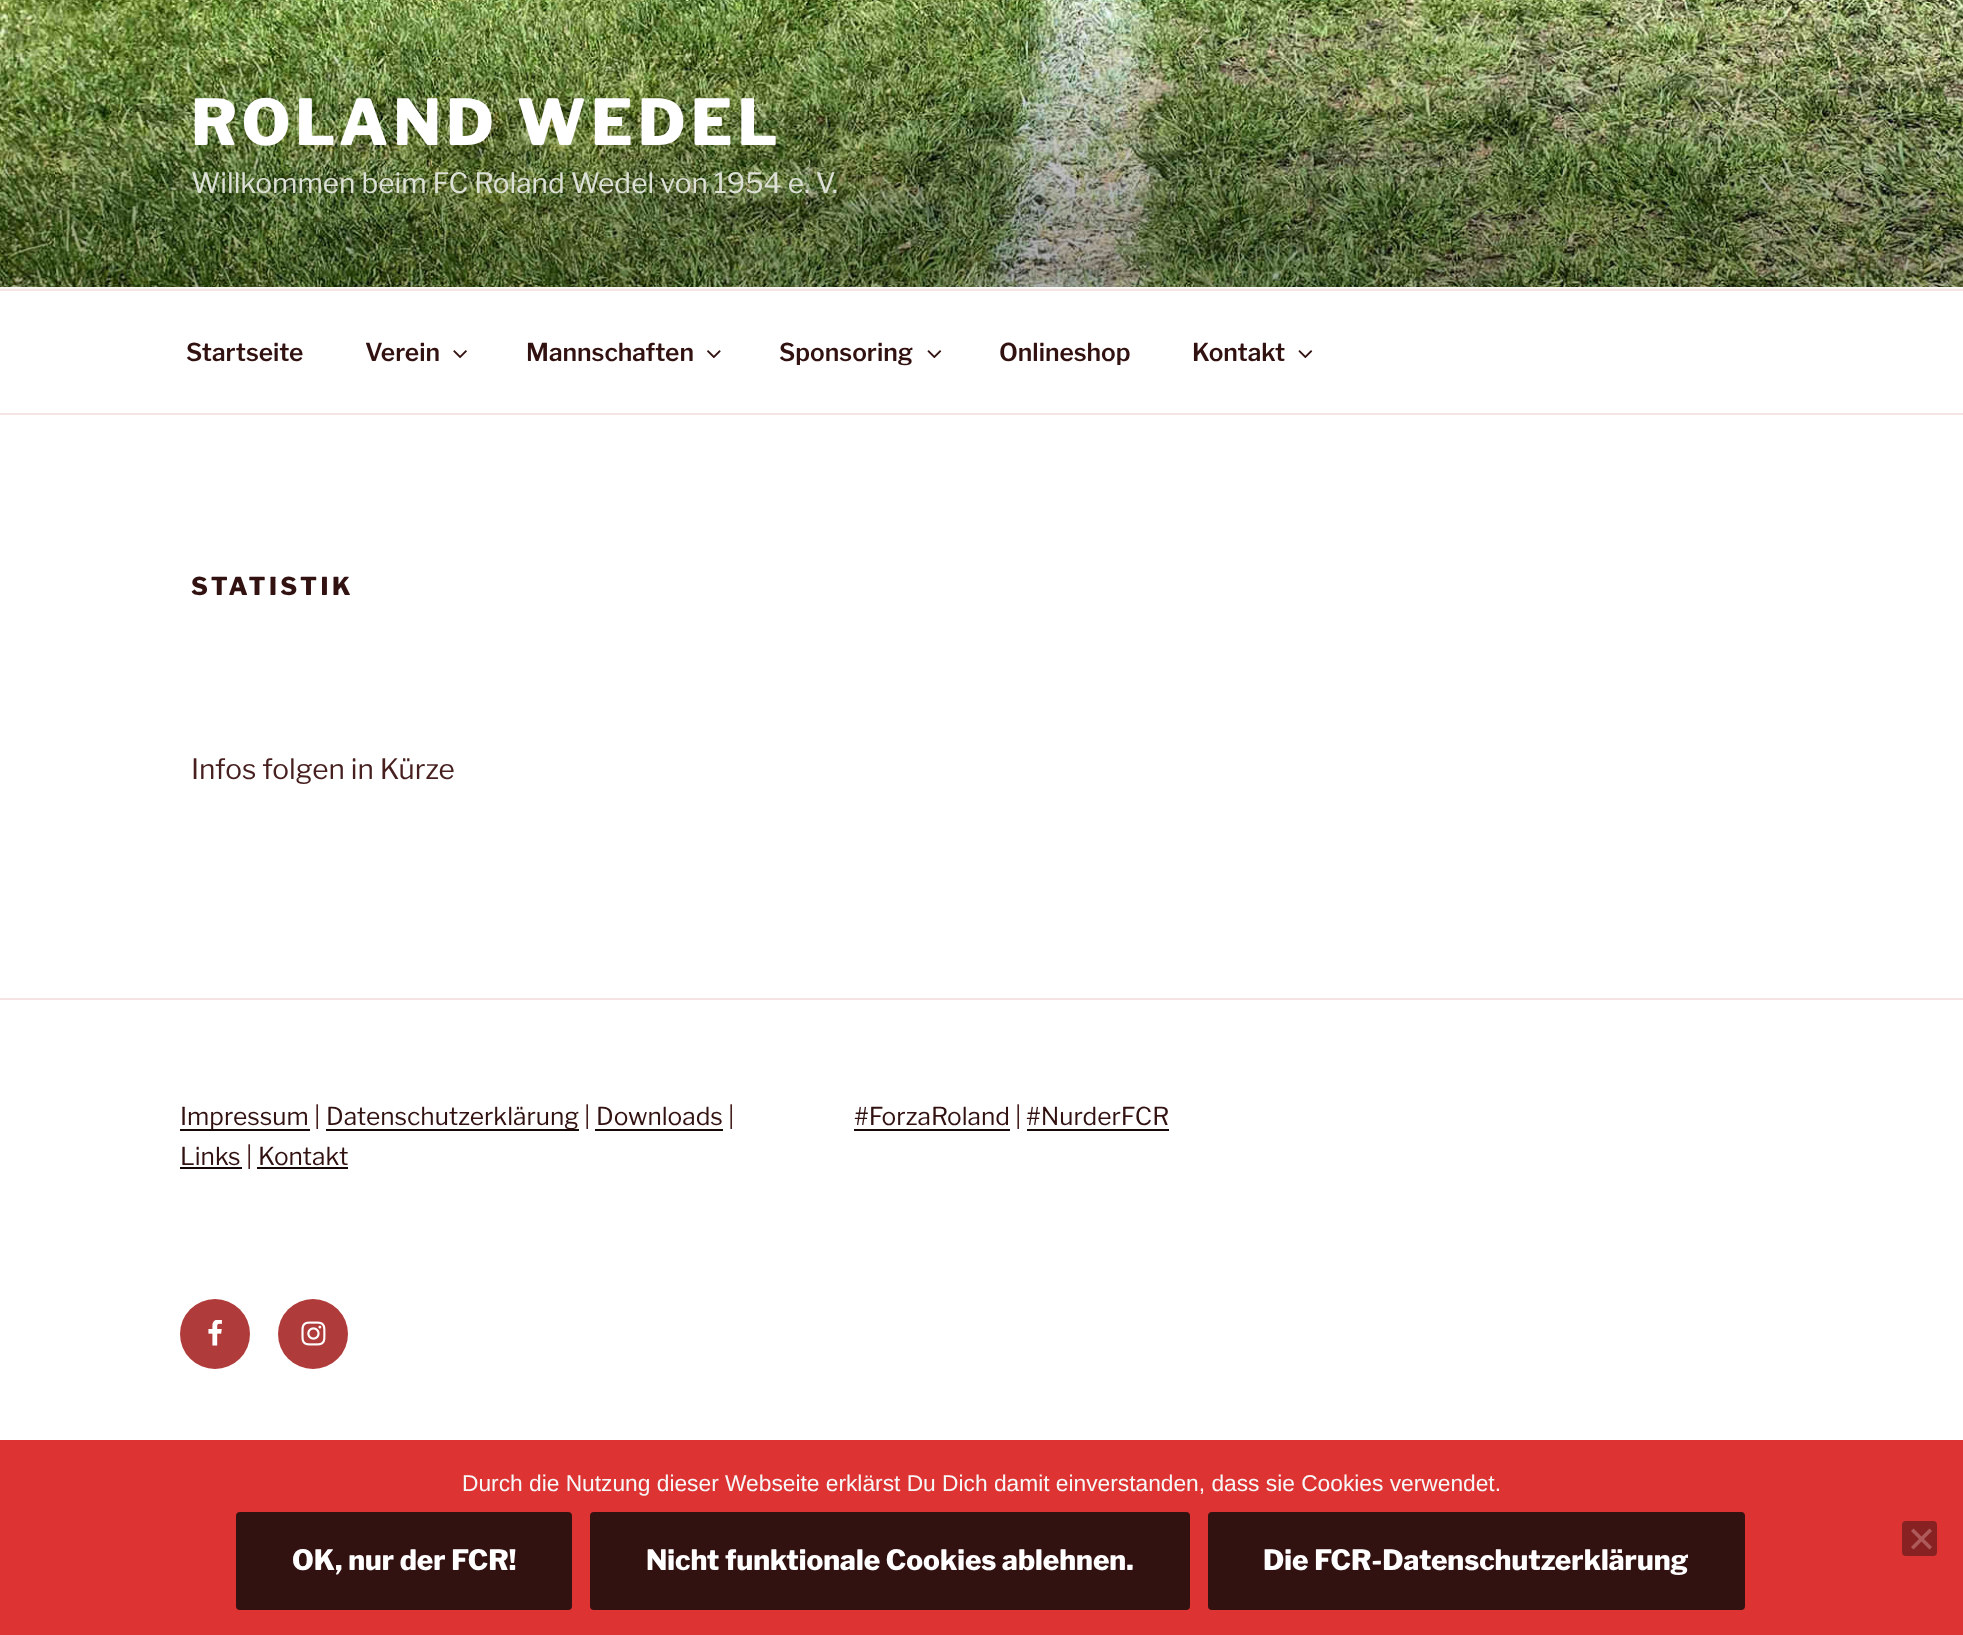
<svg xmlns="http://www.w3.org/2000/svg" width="1963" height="1635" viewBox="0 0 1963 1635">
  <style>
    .t1 { font: 100 63px 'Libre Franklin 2'; letter-spacing: 5px; fill: #fff; }
    .t2 { font: 100 28px Libre Franklin; fill: #dde1d7; }
    .t3 { font: 100 24.5px 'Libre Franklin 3'; fill: #321111; }
    .t4 { font: 100 24.5px 'Libre Franklin 2'; letter-spacing: 3.5px; fill: #321111; }
    .t5 { font: 100 28px Libre Franklin; fill: #471f1f; }
    .t6 { font: 100 24.5px Libre Franklin; fill: #321111; }
    .t7 { font: 100 24.5px Libre Franklin; fill: #471f1f; }
    .t8 { font: 22.75px Liberation Sans; fill: #f7f7f7; }
    .t9 { font: 100 28px 'Libre Franklin 2'; fill: #fff; }
  </style>
  <rect width="100%" height="100%" fill="#fff"/>
  <rect x="0" y="287" width="1963" height="2" fill="#fcf7f7"/>
  <image x="0" y="0" width="1963" height="287" href="images/1.png"/>
  <text x="191" y="145" class="t1">ROLAND WEDEL</text>
  <text x="191" y="193" class="t2">Willkommen beim FC Roland Wedel von 1954 e. V.</text>
  <rect x="0" y="289" width="1963" height="2" fill="#f6e4e4"/>
  <rect x="0" y="413" width="1963" height="2" fill="#f6e4e4"/>
  <text x="186" y="361" class="t3">Startseite</text>
  <text x="365" y="361" class="t3">Verein</text>
  <image x="453" y="350" width="14" height="9" href="images/2.png"/>
  <text x="526" y="361" class="t3">Mannschaften</text>
  <image x="707" y="350" width="14" height="9" href="images/3.png"/>
  <text x="779" y="361" class="t3">Sponsoring</text>
  <image x="927" y="350" width="15" height="9" href="images/4.png"/>
  <text x="999" y="361" class="t3">Onlineshop</text>
  <text x="1192" y="361" class="t3">Kontakt</text>
  <image x="1298" y="350" width="15" height="9" href="images/4.png"/>
  <text x="191" y="595" class="t4">STATISTIK</text>
  <text x="191" y="779" class="t5">Infos folgen in Kürze</text>
  <rect x="0" y="998" width="1963" height="2" fill="#f6e4e4"/>
  <rect x="180" y="1129" width="130" height="2" fill="#170808"/>
  <text x="180" y="1125" class="t6">Impressum</text>
  <text x="314" y="1125" class="t7">|</text>
  <rect x="326" y="1129" width="253" height="2" fill="#170808"/>
  <text x="326" y="1125" class="t6">Datenschutzerklärung</text>
  <text x="584" y="1125" class="t7">|</text>
  <text x="596" y="1125" class="t6">Downloads</text>
  <rect x="595" y="1129" width="128" height="2" fill="#170808"/>
  <text x="728" y="1125" class="t7">|</text>
  <text x="180" y="1165" class="t6">Links</text>
  <rect x="180" y="1167" width="62" height="2" fill="#170808"/>
  <text x="246" y="1165" class="t7">|</text>
  <text x="258" y="1165" class="t6">Kontakt</text>
  <rect x="257" y="1167" width="91" height="2" fill="#170808"/>
  <text x="854" y="1125" class="t6">#ForzaRoland</text>
  <rect x="854" y="1129" width="156" height="2" fill="#170808"/>
  <text x="1015" y="1125" class="t7">|</text>
  <text x="1026" y="1125" class="t6">#NurderFCR</text>
  <rect x="1027" y="1129" width="142" height="2" fill="#170808"/>
  <circle cx="215" cy="1334" r="35" fill="#b03b3b"/>
  <image x="208" y="1320" width="14" height="26" href="images/5.png"/>
  <circle cx="313" cy="1334" r="35" fill="#b03b3b"/>
  <image x="301" y="1321" width="25" height="25" href="images/6.png"/>
  <rect x="0" y="1440" width="1963" height="195" fill="#d33"/>
  <text x="462" y="1491" class="t8">Durch die Nutzung dieser Webseite erklärst Du Dich damit einverstanden, dass sie Cookies verwendet.</text>
  <rect x="1902" y="1521" width="35" height="35" rx="4" fill="#822"/>
  <path d="M1929.5 1528.5L1932 1531L1913.5 1549.5L1911 1547Z" fill="#af5a5a"/>
  <path d="M1911 1531L1913.5 1528.5L1932 1547L1929.5 1549.5Z" fill="#af5a5a"/>
  <rect x="236" y="1512" width="336" height="98" rx="4" fill="#321111"/>
  <text x="292" y="1570" class="t9">OK, nur der FCR!</text>
  <rect x="590" y="1512" width="600" height="98" rx="4" fill="#321111"/>
  <text x="646" y="1570" class="t9">Nicht funktionale Cookies ablehnen.</text>
  <rect x="1208" y="1512" width="537" height="98" rx="4" fill="#321111"/>
  <text x="1263" y="1570" class="t9">Die FCR-Datenschutzerklärung</text>
</svg>
